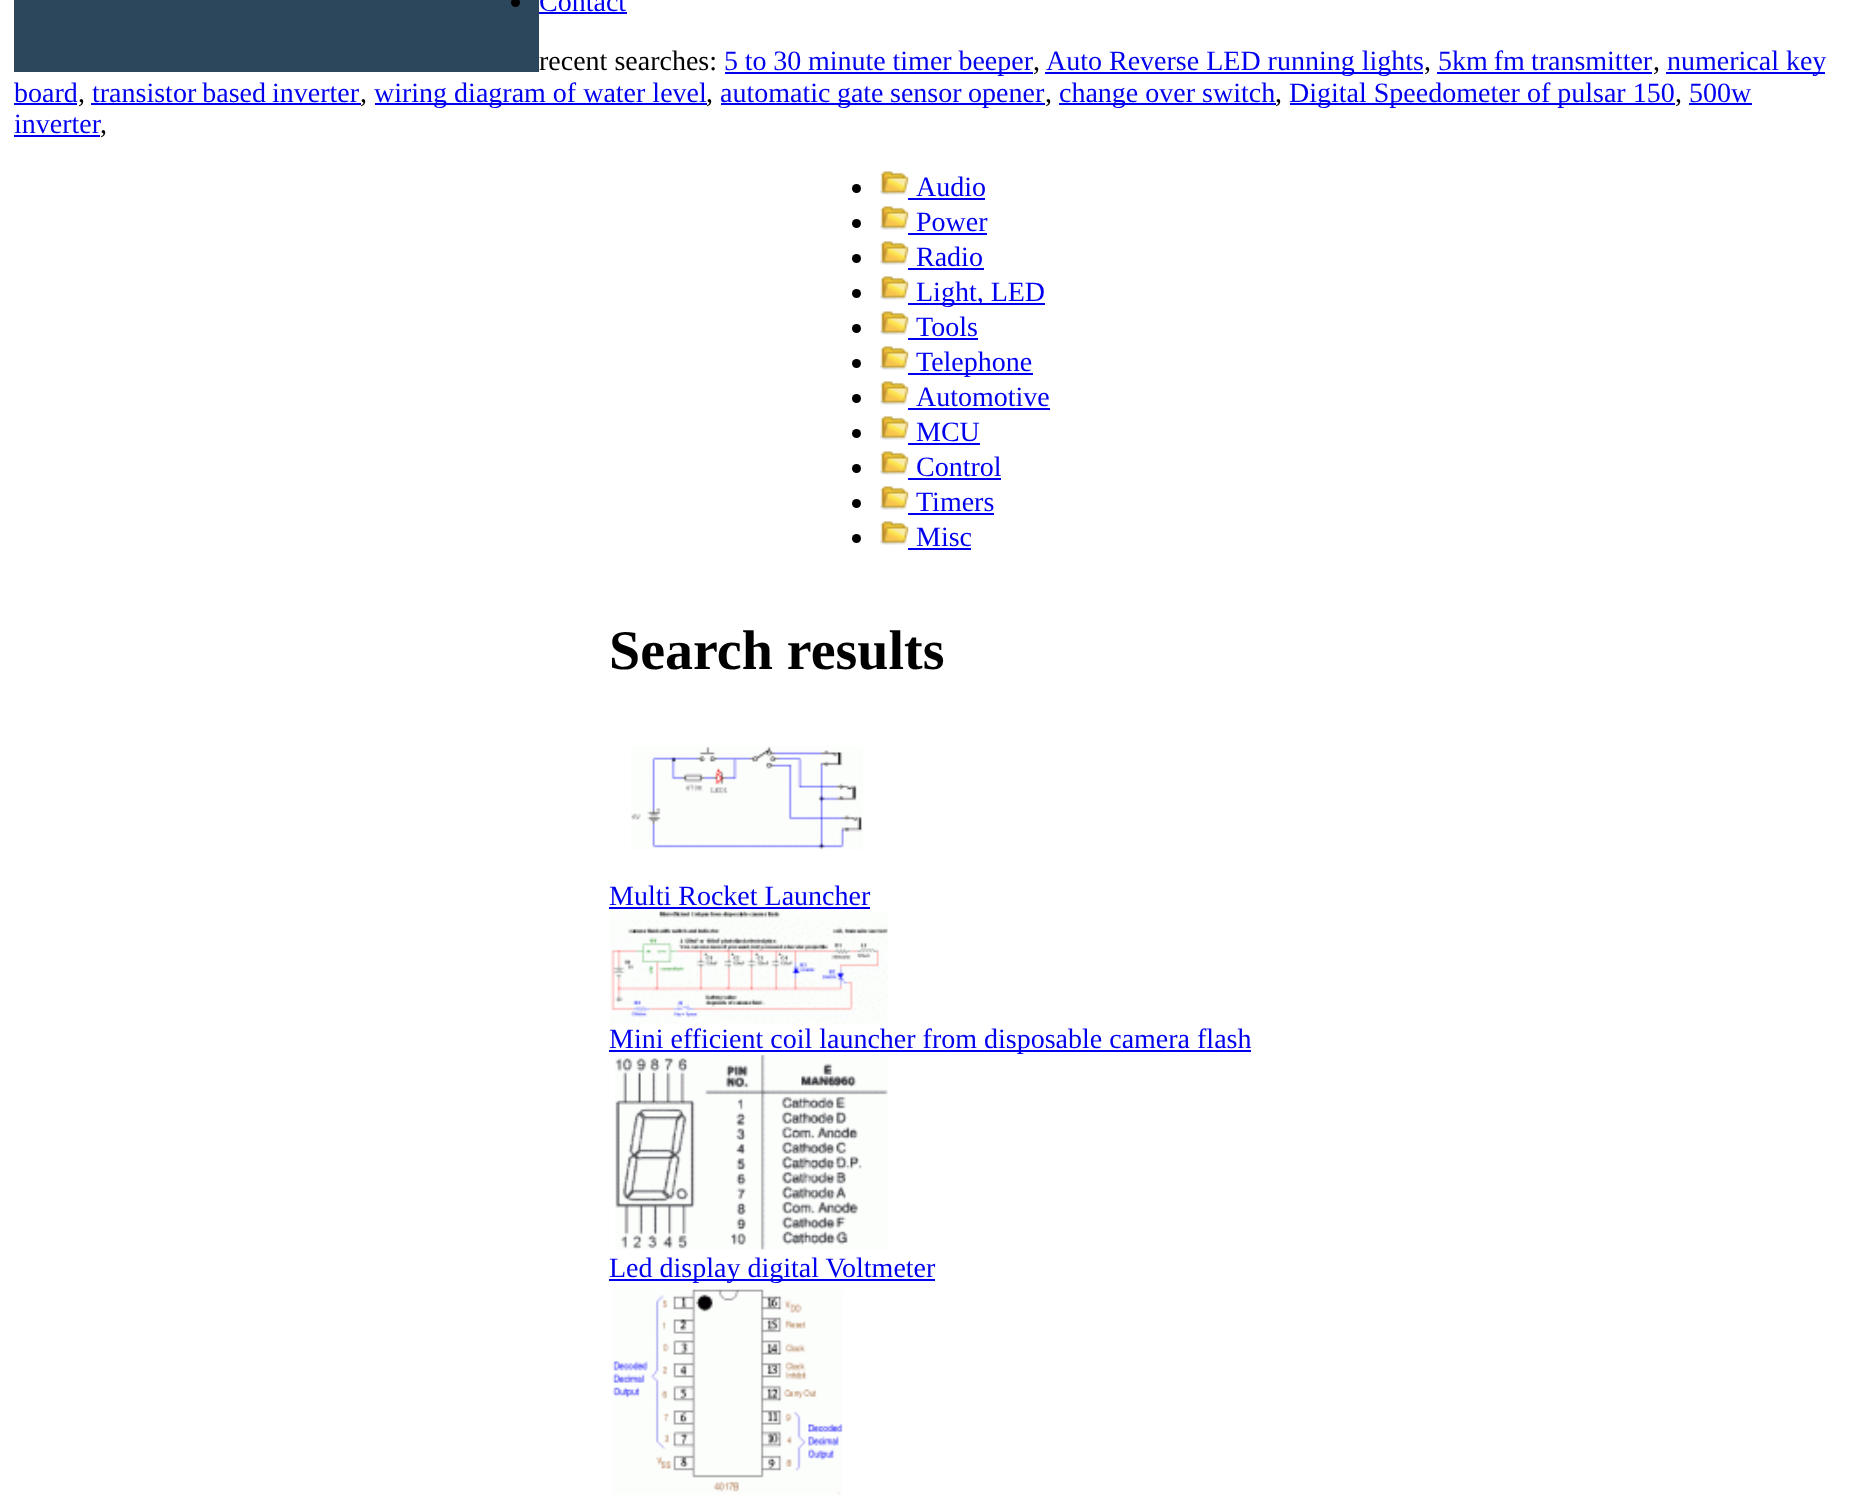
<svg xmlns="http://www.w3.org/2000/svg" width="1859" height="1509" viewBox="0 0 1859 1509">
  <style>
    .t1 { font: 28px Liberation Serif; fill: #00e; }
    .t2 { font: 28px Liberation Serif; fill: #000; }
    .t3 { font: bold 56px Liberation Serif; fill: #000; }
  </style>
  <rect width="100%" height="100%" fill="#fff"/>
  <rect x="14" y="0" width="525" height="72" fill="#2c475b"/>
  <circle cx="515.5" cy="2.5" r="4.5" fill="#000"/>
  <text x="539" y="11" class="t1">Contact</text>
  <rect x="539" y="12" width="88" height="2" fill="#00e"/>
  <text x="539" y="70" class="t2">recent searches:</text>
  <rect x="725" y="72" width="308" height="2" fill="#00e"/>
  <text x="724" y="70" word-spacing="-0.25" class="t1">5 to 30 minute timer beeper</text>
  <text x="1033" y="70" class="t2">,</text>
  <rect x="1045" y="72" width="378" height="2" fill="#00e"/>
  <text x="1046" y="70" class="t1">Auto Reverse LED running lights</text>
  <text x="1424" y="70" class="t2">,</text>
  <text x="1438" y="70" word-spacing="-1" class="t1">5km fm transmitter</text>
  <rect x="1437" y="72" width="215" height="2" fill="#00e"/>
  <text x="1653" y="70" class="t2">,</text>
  <rect x="1666" y="72" width="159" height="2" fill="#00e"/>
  <text x="1667" y="70" class="t1">numerical key</text>
  <text x="14" y="102" class="t1">board</text>
  <rect x="14" y="103" width="63" height="2" fill="#00e"/>
  <text x="78" y="102" class="t2">,</text>
  <text x="92" y="102" word-spacing="-1" class="t1">transistor based inverter</text>
  <rect x="91" y="103" width="270" height="2" fill="#00e"/>
  <text x="360" y="102" class="t2">,</text>
  <rect x="375" y="103" width="332" height="2" fill="#00e"/>
  <text x="374" y="102" class="t1">wiring diagram of water level</text>
  <text x="706" y="102" class="t2">,</text>
  <rect x="721" y="103" width="324" height="2" fill="#00e"/>
  <text x="720" y="102" word-spacing="-0.5" class="t1">automatic gate sensor opener</text>
  <text x="1045" y="102" class="t2">,</text>
  <rect x="1059" y="103" width="217" height="2" fill="#00e"/>
  <text x="1059" y="102" class="t1">change over switch</text>
  <text x="1275" y="102" class="t2">,</text>
  <rect x="1290" y="103" width="385" height="2" fill="#00e"/>
  <text x="1289" y="102" class="t1">Digital Speedometer of pulsar 150</text>
  <text x="1675" y="102" class="t2">,</text>
  <text x="1689" y="102" class="t1">500w</text>
  <rect x="1689" y="103" width="63" height="2" fill="#00e"/>
  <text x="14" y="133" class="t1">inverter</text>
  <rect x="14" y="135" width="86" height="2" fill="#00e"/>
  <text x="100" y="133" class="t2">,</text>
  <circle cx="856.5" cy="188.5" r="4.5" fill="#000"/>
  <image x="880" y="171" width="29" height="24" href="images/1.png"/>
  <text x="916" y="196" class="t1">Audio</text>
  <rect x="908" y="198" width="77" height="2" fill="#00e"/>
  <circle cx="856.5" cy="223.5" r="4.5" fill="#000"/>
  <image x="880" y="206" width="29" height="24" href="images/1.png"/>
  <text x="916" y="231" class="t1">Power</text>
  <rect x="908" y="233" width="79" height="2" fill="#00e"/>
  <circle cx="856.5" cy="258.5" r="4.5" fill="#000"/>
  <image x="880" y="241" width="29" height="24" href="images/1.png"/>
  <text x="916" y="266" class="t1">Radio</text>
  <rect x="908" y="268" width="76" height="2" fill="#00e"/>
  <circle cx="856.5" cy="293.5" r="4.5" fill="#000"/>
  <image x="880" y="276" width="29" height="24" href="images/1.png"/>
  <rect x="908" y="303" width="137" height="2" fill="#00e"/>
  <text x="916" y="301" class="t1">Light, LED</text>
  <circle cx="856.5" cy="328.5" r="4.5" fill="#000"/>
  <image x="880" y="311" width="29" height="24" href="images/1.png"/>
  <text x="916" y="336" class="t1">Tools</text>
  <rect x="908" y="338" width="70" height="2" fill="#00e"/>
  <circle cx="856.5" cy="363.5" r="4.5" fill="#000"/>
  <image x="880" y="346" width="29" height="24" href="images/1.png"/>
  <rect x="908" y="373" width="125" height="2" fill="#00e"/>
  <text x="916" y="371" class="t1">Telephone</text>
  <circle cx="856.5" cy="398.5" r="4.5" fill="#000"/>
  <image x="880" y="381" width="29" height="24" href="images/1.png"/>
  <text x="916" y="406" class="t1">Automotive</text>
  <rect x="908" y="408" width="142" height="2" fill="#00e"/>
  <circle cx="856.5" cy="433.5" r="4.5" fill="#000"/>
  <image x="880" y="416" width="29" height="24" href="images/1.png"/>
  <text x="916" y="441" class="t1">MCU</text>
  <rect x="908" y="443" width="72" height="2" fill="#00e"/>
  <circle cx="856.5" cy="468.5" r="4.5" fill="#000"/>
  <image x="880" y="451" width="29" height="24" href="images/1.png"/>
  <text x="916" y="476" class="t1">Control</text>
  <rect x="908" y="478" width="93" height="2" fill="#00e"/>
  <circle cx="856.5" cy="503.5" r="4.5" fill="#000"/>
  <image x="880" y="486" width="29" height="24" href="images/1.png"/>
  <text x="916" y="511" class="t1">Timers</text>
  <rect x="908" y="513" width="86" height="2" fill="#00e"/>
  <circle cx="856.5" cy="538.5" r="4.5" fill="#000"/>
  <image x="880" y="521" width="29" height="24" href="images/1.png"/>
  <text x="916" y="546" class="t1">Misc</text>
  <rect x="908" y="548" width="63" height="2" fill="#00e"/>
  <text x="609" y="669" class="t3">Search results</text>
  <image x="631" y="746" width="232" height="104" href="images/2.png"/>
  <text x="609" y="905" class="t1">Multi Rocket Launcher</text>
  <rect x="609" y="907" width="261" height="2" fill="#00e"/>
  <image x="610" y="911" width="278" height="113" href="images/3.png"/>
  <rect x="609" y="1050" width="642" height="2" fill="#00e"/>
  <text x="609" y="1048" class="t1">Mini efficient coil launcher from disposable camera flash</text>
  <image x="615" y="1055" width="273" height="195" href="images/4.png"/>
  <rect x="609" y="1279" width="326" height="2" fill="#00e"/>
  <text x="609" y="1277" class="t1">Led display digital Voltmeter</text>
  <image x="612" y="1289" width="231" height="206" href="images/5.png"/>
</svg>
